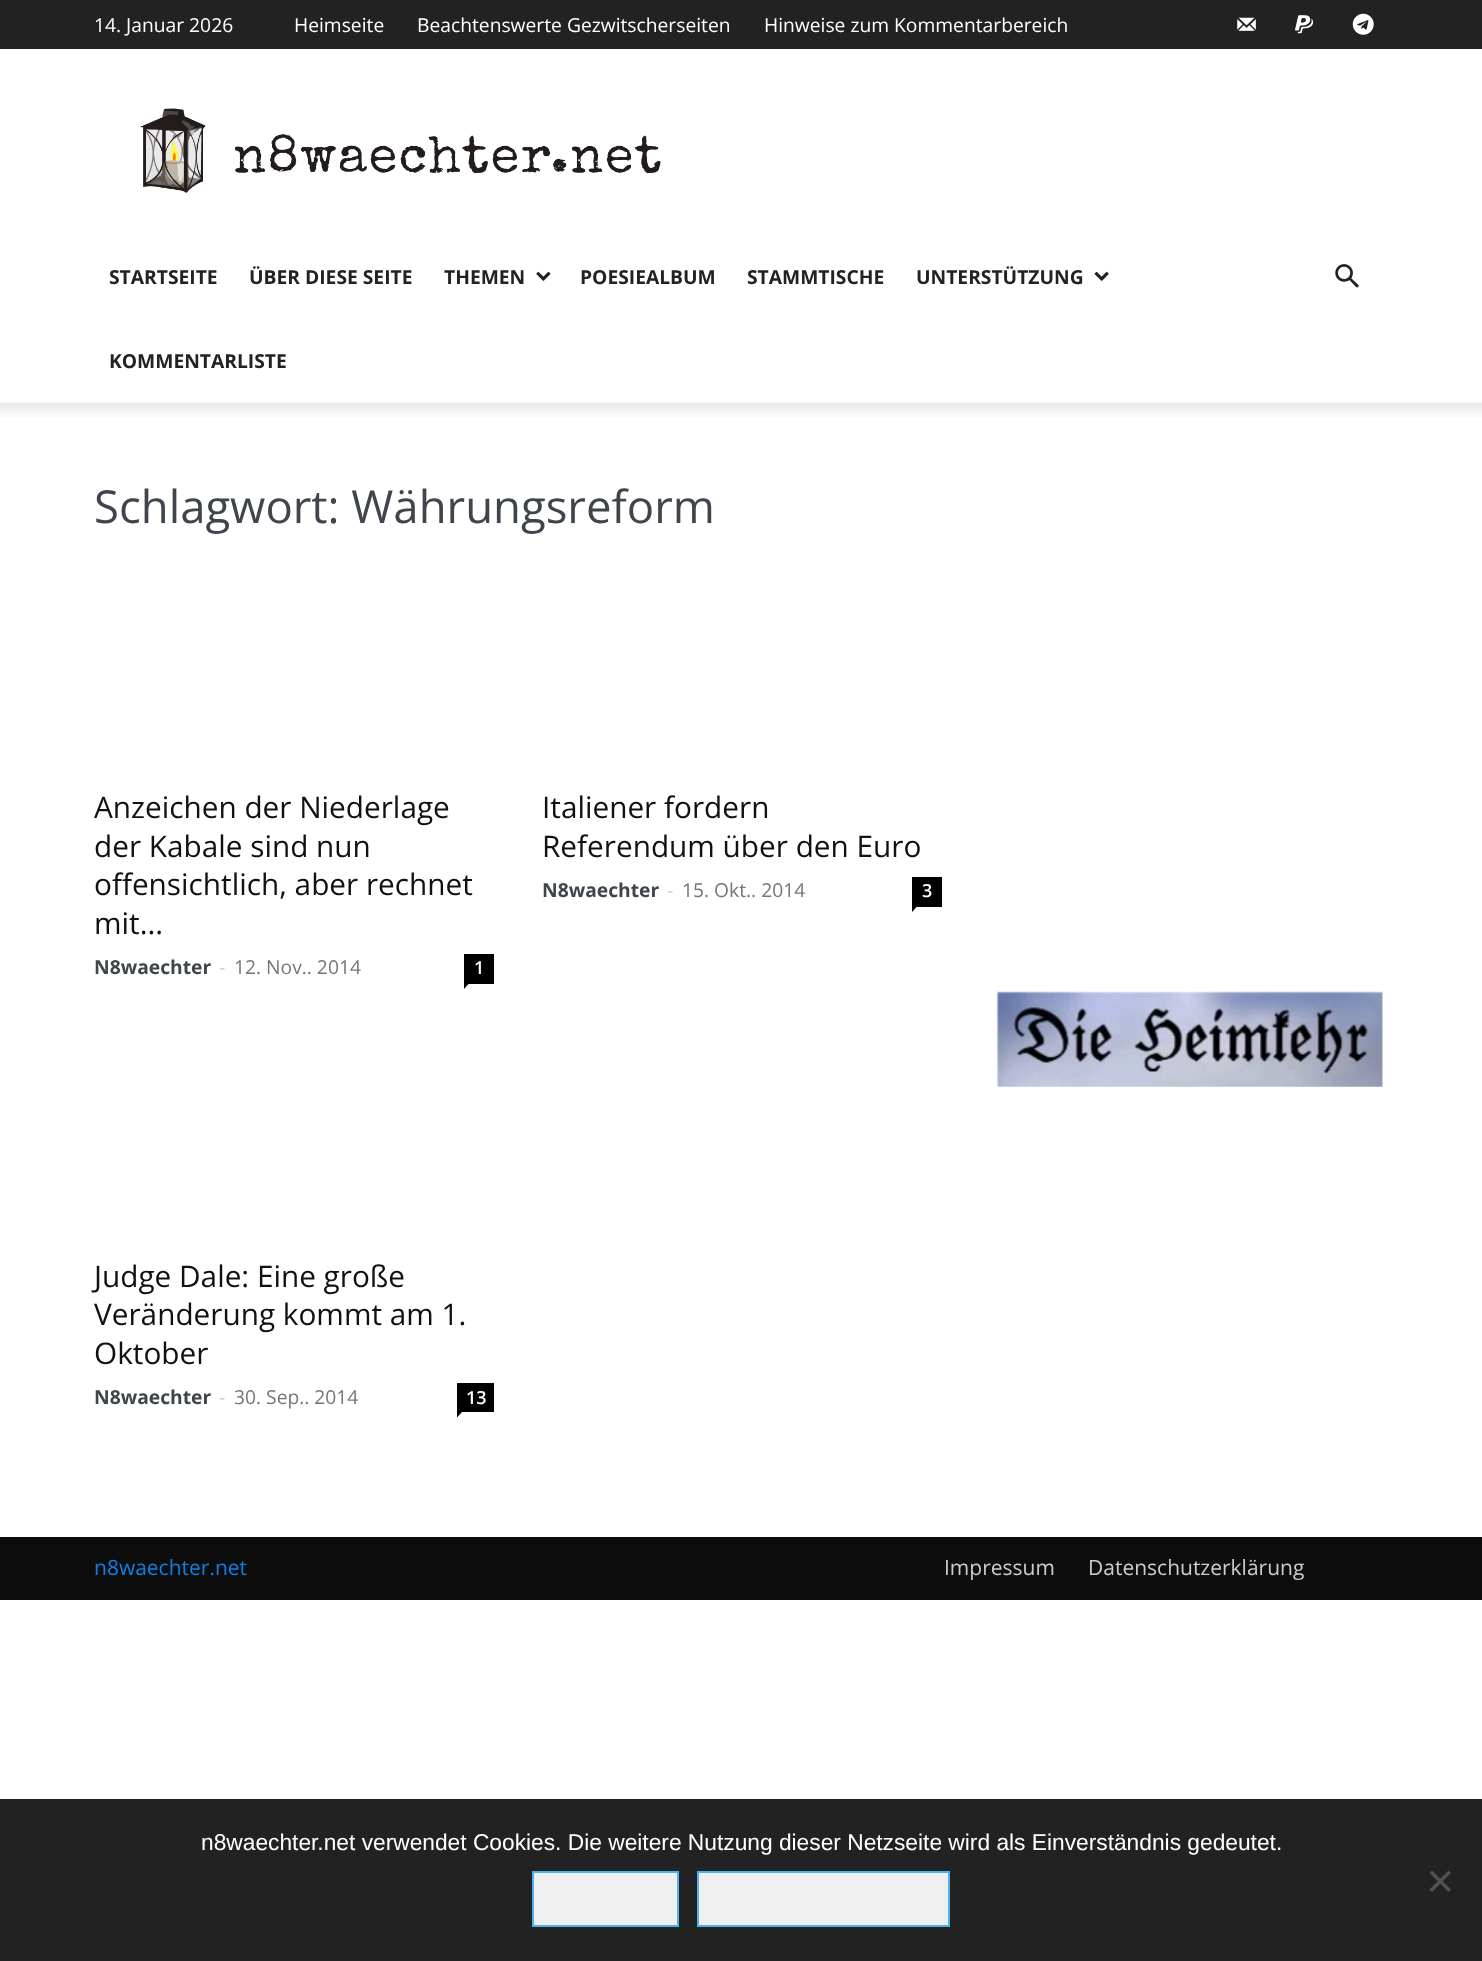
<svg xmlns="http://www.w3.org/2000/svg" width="1482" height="1961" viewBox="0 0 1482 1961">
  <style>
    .t1 { font: 19.25px Open Sans; fill: #fff; }
    .t2 { font: bold 19.25px Open Sans; fill: #222; }
    .t3 { font: 45.5px Open Sans; fill: #40454d; }
    .t4 { font: 29.75px Open Sans; fill: #111; }
    .t5 { font: bold 19.25px Open Sans; fill: #40454d; }
    .t6 { font: 19.25px Open Sans; fill: #ccc; }
    .t7 { font: 19.25px Open Sans; fill: #767676; }
    .t8 { font: 600 18px Open Sans; fill: #fff; }
    .t9 { font: 21px Open Sans; fill: #0b81e8; }
    .t10 { font: 21px Open Sans; fill: #ccc; }
    .t11 { font: 22.75px Liberation Sans; fill: #fff; }
  </style>
  <rect width="100%" height="100%" fill="#fff"/>
  <rect x="0" y="0" width="1482" height="49" fill="#222"/>
  <text x="94" y="32" class="t1">14. Januar 2026</text>
  <text x="294" y="32" class="t1">Heimseite</text>
  <text x="417" y="32" class="t1">Beachtenswerte Gezwitscherseiten</text>
  <text x="764" y="32" class="t1">Hinweise zum Kommentarbereich</text>
  <image x="1237" y="17" width="19" height="14" href="images/1.png"/>
  <image x="1295" y="15" width="18" height="19" href="images/2.png"/>
  <image x="1352" y="13" width="22" height="22" href="images/3.png"/>
  <image x="140" y="108" width="521" height="85" href="images/4.png"/>
  <text x="109" y="284" class="t2">STARTSEITE</text>
  <text x="249" y="284" class="t2">ÜBER DIESE SEITE</text>
  <text x="444" y="284" class="t2">THEMEN</text>
  <image x="536" y="271" width="15" height="10" href="images/5.png"/>
  <text x="580" y="284" class="t2">POESIEALBUM</text>
  <text x="747" y="284" class="t2">STAMMTISCHE</text>
  <text x="916" y="284" class="t2">UNTERSTÜTZUNG</text>
  <image x="1094" y="271" width="15" height="10" href="images/6.png"/>
  <text x="109" y="368" class="t2">KOMMENTARLISTE</text>
  <image x="1335" y="264" width="24" height="24" href="images/7.png"/>
  <image x="0" y="402" width="1482" height="15" href="images/8.png"/>
  <text x="94" y="523" class="t3">Schlagwort: Währungsreform</text>
  <text x="94" y="818" class="t4">Anzeichen der Niederlage</text>
  <text x="94" y="857" class="t4">der Kabale sind nun</text>
  <text x="94" y="895" class="t4">offensichtlich, aber rechnet</text>
  <text x="94" y="934" class="t4">mit...</text>
  <text x="94" y="974" class="t5">N8waechter</text>
  <text x="219" y="974" class="t6">-</text>
  <text x="234" y="974" class="t7">12. Nov.. 2014</text>
  <rect x="464" y="954" width="30" height="30" fill="#000"/>
  <text x="474" y="974" class="t8">1</text>
  <path d="M464 983.5H469L464 989Z" fill="#000"/>
  <text x="542" y="818" class="t4">Italiener fordern</text>
  <text x="542" y="857" class="t4">Referendum über den Euro</text>
  <text x="542" y="897" class="t5">N8waechter</text>
  <text x="667" y="897" class="t6">-</text>
  <text x="682" y="897" class="t7">15. Okt.. 2014</text>
  <rect x="912" y="877" width="30" height="30" fill="#000"/>
  <text x="922" y="897" class="t8">3</text>
  <path d="M912 906.5H917L912 912Z" fill="#000"/>
  <text x="94" y="1287" class="t4">Judge Dale: Eine große</text>
  <text x="94" y="1325" class="t4">Veränderung kommt am 1.</text>
  <text x="94" y="1364" class="t4">Oktober</text>
  <text x="94" y="1404" class="t5">N8waechter</text>
  <text x="219" y="1404" class="t6">-</text>
  <text x="234" y="1404" class="t7">30. Sep.. 2014</text>
  <rect x="457" y="1383" width="37" height="29" fill="#000"/>
  <text x="466" y="1404" class="t8">13</text>
  <path d="M457 1412H462L457 1417.5Z" fill="#000"/>
  <image x="996" y="991" width="387" height="96" href="images/9.png"/>
  <rect x="0" y="1537" width="1482" height="63" fill="#0d0d0d"/>
  <text x="94" y="1575" class="t9">n8waechter.net</text>
  <text x="944" y="1575" class="t10">Impressum</text>
  <text x="1088" y="1575" class="t10">Datenschutzerklärung</text>
  <rect x="0" y="1799" width="1482" height="162" fill="#222"/>
  <text x="201" y="1850" class="t11">n8waechter.net verwendet Cookies. Die weitere Nutzung dieser Netzseite wird als Einverständnis gedeutet.</text>
  <rect x="533" y="1872" width="145" height="54" fill="#efefef" stroke="#4db2ec" stroke-width="2"/>
  <rect x="698" y="1872" width="251" height="54" fill="#efefef" stroke="#4db2ec" stroke-width="2"/>
  <path d="M1448.5 1870.5L1451 1873L1432 1892L1429.5 1889.5Z" fill="#515151"/>
  <path d="M1429.5 1873L1432 1870.5L1451 1889.5L1448.5 1892Z" fill="#515151"/>
</svg>
